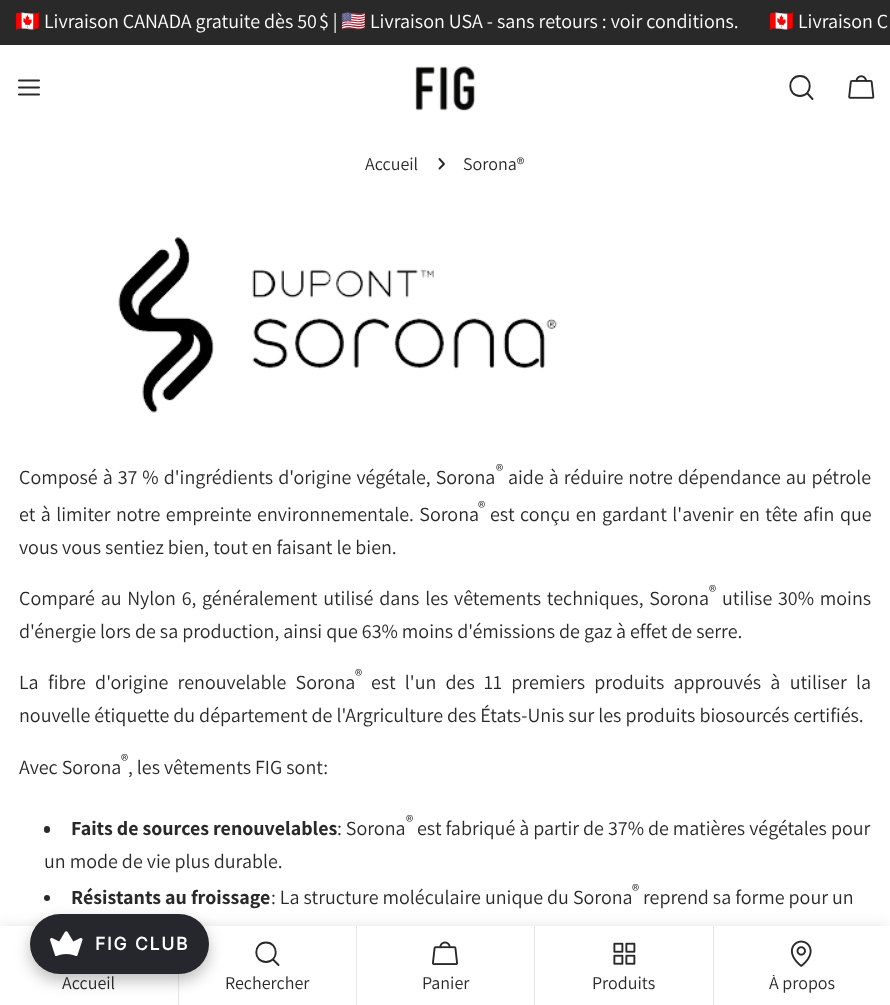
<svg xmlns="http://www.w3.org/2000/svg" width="890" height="1005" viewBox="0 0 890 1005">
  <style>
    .t1 { font: 20px Noto Color Emoji; fill: #fff; }
    .t2 { font: 20px Assistant; fill: #fff; }
    .t3 { font: 18px Assistant; fill: #292929; }
    .t4 { font: 20px Assistant; fill: #292929; }
    .t5 { font: 17px Assistant; fill: #292929; }
    .t6 { font: bold 20px Assistant; fill: #292929; }
    .t7 { font: bold 17.5px Inter; letter-spacing: 1.75px; fill: #fff; }
  </style>
  <defs>
    <clipPath id="clip1"><rect x="720" y="975" width="164" height="18"/></clipPath>
  </defs>
  <rect width="100%" height="100%" fill="#fff"/>
  <rect x="0" y="0" width="890" height="45" fill="#292929"/>
  <text x="15" y="28" class="t1">🇨🇦</text>
  <text x="44" y="28" class="t2">Livraison CANADA gratuite dès 50 $ |</text>
  <text x="341" y="28" class="t1">🇺🇸</text>
  <text x="370" y="28" class="t2">Livraison USA - sans retours : voir conditions.</text>
  <text x="769" y="28" class="t1">🇨🇦</text>
  <text x="798" y="28" class="t2">Livraison C</text>
  <path d="M19 87.5H39M19 80.5H39M19 94.5H39" fill="none" stroke="#292929" stroke-width="2.1" stroke-linecap="round" stroke-linejoin="round"/>
  <image x="415" y="66" width="61" height="45" href="images/1.png"/>
  <path d="M800 96C813 96 813 76 800 76C787 76 787 96 800 96ZM807 93L812.5 99" fill="none" stroke="#292929" stroke-width="1.9" stroke-linecap="round" stroke-linejoin="round"/>
  <image x="848" y="75" width="27" height="24" href="images/2.png"/>
  <text x="365" y="170" class="t3">Accueil</text>
  <path d="M439.5 159L444 164L439.5 168.5" fill="none" stroke="#292929" stroke-width="1.9" stroke-linecap="round" stroke-linejoin="round"/>
  <text x="463" y="170" class="t3">Sorona®</text>
  <image x="118" y="237" width="439" height="176" href="images/3.png"/>
  <text x="19" y="484" word-spacing="1" class="t4">Composé à 37 % d'ingrédients d'origine végétale, Sorona</text>
  <text x="496" y="476" class="t5">®</text>
  <text x="508" y="484" word-spacing="1" class="t4">aide à réduire notre dépendance au pétrole</text>
  <text x="19" y="521" word-spacing="1.5" class="t4">et à limiter notre empreinte environnementale. Sorona</text>
  <text x="478" y="513" class="t5">®</text>
  <text x="490" y="521" word-spacing="1.5" class="t4">est conçu en gardant l'avenir en tête afin que</text>
  <text x="19" y="554" class="t4">vous vous sentiez bien, tout en faisant le bien.</text>
  <text x="19" y="605" word-spacing="1.75" class="t4">Comparé au Nylon 6, généralement utilisé dans les vêtements techniques, Sorona</text>
  <text x="709" y="597" class="t5">®</text>
  <text x="722" y="605" word-spacing="1.75" class="t4">utilise 30% moins</text>
  <text x="19" y="638" class="t4">d'énergie lors de sa production, ainsi que 63% moins d'émissions de gaz à effet de serre.</text>
  <text x="19" y="689" word-spacing="5.25" class="t4">La fibre d'origine renouvelable Sorona</text>
  <text x="355" y="681" class="t5">®</text>
  <text x="371" y="689" word-spacing="5.25" class="t4">est l'un des 11 premiers produits approuvés à utiliser la</text>
  <text x="19" y="722" class="t4">nouvelle étiquette du département de l'Argriculture des États-Unis sur les produits biosourcés certifiés.</text>
  <text x="121" y="766" class="t5">®</text>
  <text x="19" y="774" class="t4">Avec Sorona</text>
  <text x="128" y="774" class="t4">, les vêtements FIG sont:</text>
  <rect x="44" y="826" width="6" height="7" rx="3" fill="#292929"/>
  <text x="71" y="835" class="t6">Faits de sources renouvelables</text>
  <text x="337" y="835" class="t4">: Sorona</text>
  <text x="406" y="827" class="t5">®</text>
  <text x="417" y="835" class="t4">est fabriqué à partir de 37% de matières végétales pour</text>
  <text x="44" y="868" class="t4">un mode de vie plus durable.</text>
  <circle cx="47" cy="898" r="3" fill="#292929"/>
  <text x="71" y="904" class="t6">Résistants au froissage</text>
  <text x="271" y="904" class="t4">: La structure moléculaire unique du Sorona</text>
  <text x="632" y="896" class="t5">®</text>
  <text x="643" y="904" class="t4">reprend sa forme pour un</text>
  <rect x="-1" y="924" width="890" height="79" fill="#00000014" filter="blur(6px)"/>
  <rect x="0" y="926" width="890" height="79" fill="#fff"/>
  <text x="62" y="989" class="t3">Accueil</text>
  <rect x="178" y="974" width="1" height="31" fill="#e6e6e6"/>
  <path d="M266 962C279 962 279 942.5 266 942.5C253 942.5 253 962 266 962ZM273 959.5L278.5 965" fill="none" stroke="#292929" stroke-width="1.9" stroke-linecap="round" stroke-linejoin="round"/>
  <text x="225" y="989" class="t3">Rechercher</text>
  <rect x="356" y="926" width="1" height="79" fill="#e6e6e6"/>
  <image x="432" y="941" width="26" height="24" href="images/4.png"/>
  <text x="422" y="989" class="t3">Panier</text>
  <rect x="534" y="926" width="1" height="79" fill="#e6e6e6"/>
  <image x="613" y="942" width="23" height="23" href="images/5.png"/>
  <text x="592" y="989" class="t3">Produits</text>
  <rect x="713" y="926" width="1" height="79" fill="#e6e6e6"/>
  <image x="790" y="940" width="22" height="27" href="images/6.png"/>
  <g clip-path="url(#clip1)">
    <text x="769" y="989" class="t3">À propos</text>
  </g>
  <rect x="30" y="921" width="179" height="60" rx="30" fill="#00000040" filter="blur(7.5px)"/>
  <rect x="30" y="914" width="179" height="60" rx="30" fill="#25272c"/>
  <image x="50" y="931" width="33" height="25" href="images/7.png"/>
  <text x="95" y="950" class="t7">FIG CLUB</text>
</svg>
